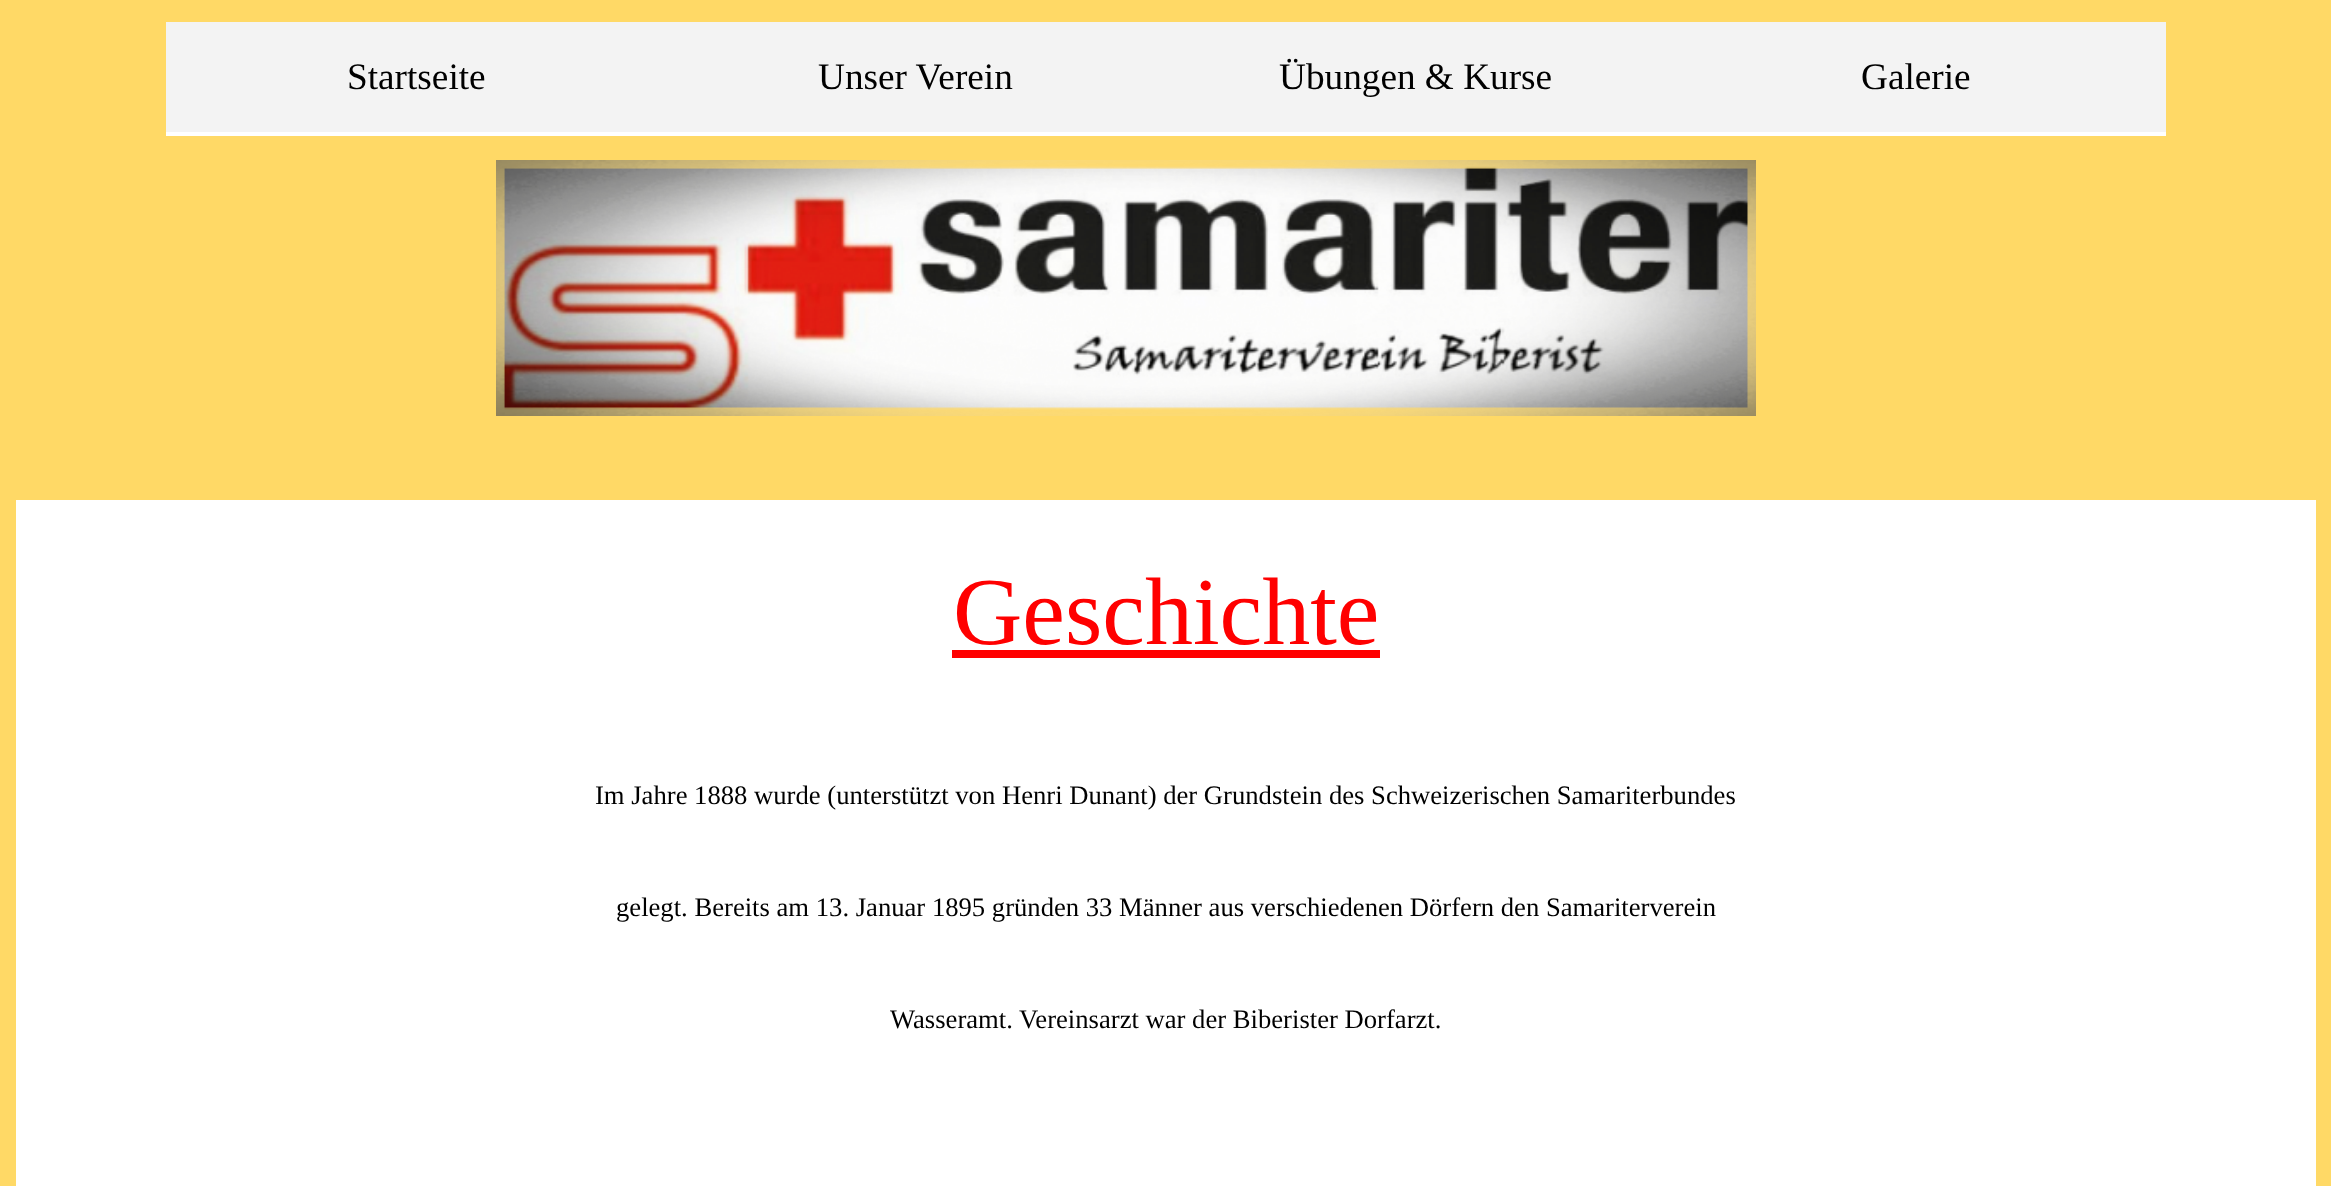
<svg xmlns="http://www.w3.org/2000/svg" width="2331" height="1186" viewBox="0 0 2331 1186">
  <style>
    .t1 { font: 37.25px Liberation Serif; fill: #000; }
    .t2 { font: 96px Liberation Serif; fill: #f00; }
    .t3 { font: 26.65px Liberation Serif; fill: #000; }
  </style>
  <rect width="100%" height="100%" fill="#ffd966"/>
  <rect x="166" y="22" width="2000" height="110" fill="#f3f3f3"/>
  <rect x="166" y="132" width="2000" height="4" fill="#fff"/>
  <text x="347" y="89" class="t1">Startseite</text>
  <text x="818" y="89" class="t1">Unser Verein</text>
  <text x="1279" y="89" class="t1">Übungen &amp; Kurse</text>
  <text x="1861" y="89" class="t1">Galerie</text>
  <image x="496" y="160" width="1260" height="256" href="images/1.png"/>
  <rect x="16" y="500" width="2300" height="686" fill="#fff"/>
  <text x="953" y="644" class="t2">Geschichte</text>
  <rect x="952" y="650" width="428" height="8" fill="#f00"/>
  <text x="595" y="804" class="t3">Im Jahre 1888 wurde (unterstützt von Henri Dunant) der Grundstein des Schweizerischen Samariterbundes</text>
  <text x="616" y="916" class="t3">gelegt. Bereits am 13. Januar 1895 gründen 33 Männer aus verschiedenen Dörfern den Samariterverein</text>
  <text x="890" y="1028" class="t3">Wasseramt. Vereinsarzt war der Biberister Dorfarzt.</text>
</svg>
